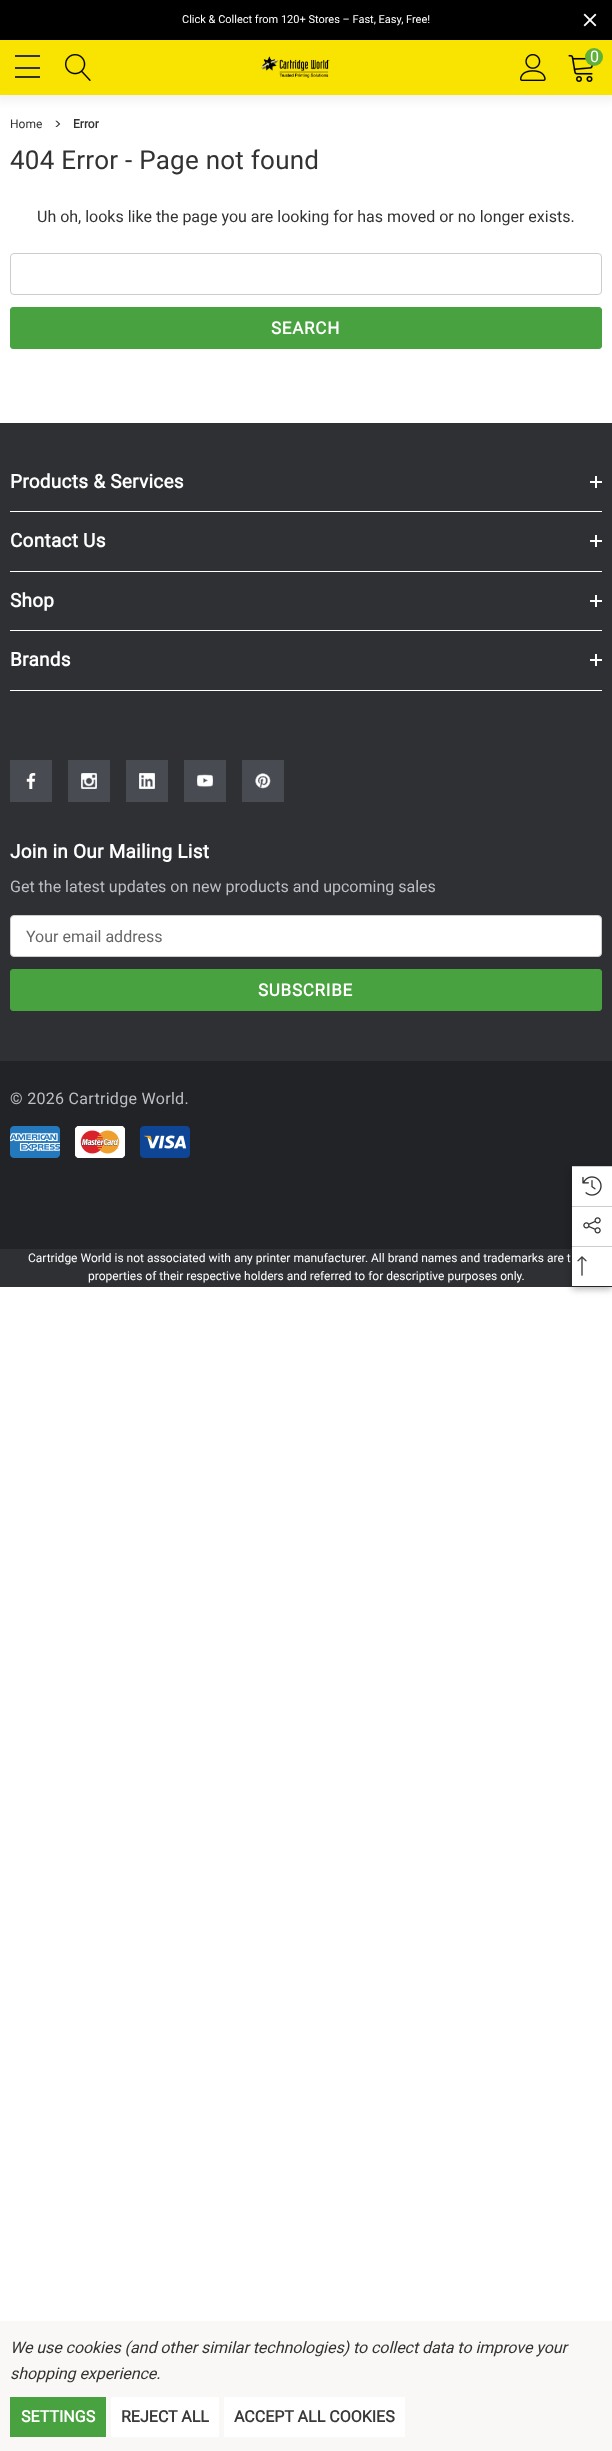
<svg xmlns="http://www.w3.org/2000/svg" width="612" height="2451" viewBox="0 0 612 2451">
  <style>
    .t1 { font: 11px Roboto; fill: #fff; }
    .t2 { font: 16px Roboto; fill: #fff; }
    .t3 { font: 12px Roboto; fill: #323232; }
    .t4 { font: 14px Poppins; fill: #323232; }
    .t5 { font: bold 12px Roboto; fill: #323232; }
    .t6 { font: 26px Roboto; letter-spacing: 0.25px; fill: #323232; }
    .t7 { font: 16px Roboto; fill: #323232; }
    .t8 { font: bold 17px Roboto; letter-spacing: 0.75px; fill: #fff; }
    .t9 { font: bold 19px Roboto; letter-spacing: 0.25px; fill: #fff; }
    .t10 { font: 16px Roboto; fill: #bcbfc5; }
    .t11 { font: 16px Roboto; fill: #666; }
    .t12 { font: 16px Roboto; letter-spacing: 0.3px; fill: #bcbfc5; }
    .t13 { font: 12px Roboto; fill: #fff; }
    .t14 { font: italic 16px Roboto; letter-spacing: -0.05px; fill: #323232; }
    .t15 { font: bold 16px Roboto; fill: #fff; }
    .t16 { font: bold 16px Roboto; fill: #393939; }
  </style>
  <rect width="100%" height="100%" fill="#fff"/>
  <rect x="0" y="0" width="612" height="40" fill="#000"/>
  <text x="182" y="23" class="t1">Click &amp; Collect from 120+ Stores – Fast, Easy, Free!</text>
  <image x="583" y="13" width="14" height="14" href="images/1.png"/>
  <rect x="-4" y="38" width="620" height="63" fill="#0000000d" filter="blur(4px)"/>
  <rect x="0" y="40" width="612" height="55" fill="#f9e300"/>
  <rect x="15" y="67" width="25" height="2" fill="#323232"/>
  <rect x="15" y="55" width="25" height="2" fill="#323232"/>
  <rect x="15" y="76" width="25" height="2" fill="#323232"/>
  <image x="65" y="54" width="26" height="27" href="images/2.png"/>
  <image x="261" y="56" width="69" height="22" href="images/3.png"/>
  <image x="520" y="54" width="26" height="27" href="images/4.png"/>
  <image x="568" y="54" width="25" height="28" href="images/5.png"/>
  <circle cx="594" cy="57" r="9" fill="#5fb139"/>
  <text x="590" y="62" class="t2">0</text>
  <text x="10" y="128" class="t3">Home</text>
  <text x="54" y="129" class="t4">&gt;</text>
  <text x="73" y="128" class="t5">Error</text>
  <text x="10" y="169" class="t6">404 Error - Page not found</text>
  <text x="37" y="222" class="t7">Uh oh, looks like the page you are looking for has moved or no longer exists.</text>
  <rect x="10.5" y="253.5" width="591" height="41" rx="3.5" fill="none" stroke="#ccc"/>
  <rect x="10.5" y="307.5" width="591" height="41" rx="2.5" fill="#48a23f" stroke="#48a23f"/>
  <text x="271" y="334" class="t8">SEARCH</text>
  <rect x="0" y="423" width="612" height="864" fill="#2e3034"/>
  <rect x="10" y="511" width="592" height="1" fill="#fff"/>
  <text x="10" y="488" class="t9">Products &amp; Services</text>
  <rect x="595" y="476" width="2" height="12" fill="#fff"/>
  <rect x="590" y="481" width="12" height="2" fill="#fff"/>
  <rect x="10" y="571" width="592" height="1" fill="#fff"/>
  <text x="10" y="547" class="t9">Contact Us</text>
  <rect x="595" y="535" width="2" height="12" fill="#fff"/>
  <rect x="590" y="540" width="12" height="2" fill="#fff"/>
  <rect x="10" y="630" width="592" height="1" fill="#fff"/>
  <text x="10" y="607" class="t9">Shop</text>
  <rect x="595" y="595" width="2" height="12" fill="#fff"/>
  <rect x="590" y="600" width="12" height="2" fill="#fff"/>
  <rect x="10" y="690" width="592" height="1" fill="#fff"/>
  <text x="10" y="666" class="t9">Brands</text>
  <rect x="595" y="654" width="2" height="12" fill="#fff"/>
  <rect x="590" y="659" width="12" height="2" fill="#fff"/>
  <rect x="10" y="760" width="42" height="42" fill="#484b51"/>
  <image x="26" y="773" width="10" height="16" href="images/6.png"/>
  <rect x="68" y="760" width="42" height="42" fill="#484b51"/>
  <image x="81" y="773" width="16" height="16" href="images/7.png"/>
  <rect x="126" y="760" width="42" height="42" fill="#484b51"/>
  <image x="139" y="773" width="16" height="16" href="images/8.png"/>
  <rect x="184" y="760" width="42" height="42" fill="#484b51"/>
  <image x="197" y="774" width="16" height="13" href="images/9.png"/>
  <rect x="242" y="760" width="42" height="42" fill="#484b51"/>
  <image x="255" y="773" width="16" height="16" href="images/10.png"/>
  <text x="10" y="858" class="t9">Join in Our Mailing List</text>
  <text x="10" y="892" class="t10">Get the latest updates on new products and upcoming sales</text>
  <rect x="10.5" y="915.5" width="591" height="41" rx="3.5" fill="#fff" stroke="#ccc"/>
  <text x="26" y="942" class="t11">Your email address</text>
  <rect x="10.5" y="969.5" width="591" height="41" rx="2.5" fill="#48a23f" stroke="#48a23f"/>
  <text x="258" y="996" class="t8">SUBSCRIBE</text>
  <rect x="0" y="1061" width="612" height="188" fill="#222326"/>
  <text x="10" y="1104" class="t12">© 2026 Cartridge World.</text>
  <image x="10" y="1126" width="50" height="32" href="images/11.png"/>
  <image x="75" y="1126" width="50" height="32" href="images/12.png"/>
  <image x="140" y="1126" width="50" height="32" href="images/13.png"/>
  <text x="28" y="1262" class="t13">Cartridge World is not associated with any printer manufacturer. All brand names and trademarks are t</text>
  <text x="88" y="1280" class="t13">properties of their respective holders and referred to for descriptive purposes only.</text>
  <rect x="572" y="1169" width="40" height="120" fill="#0000004d" filter="blur(3.5px)"/>
  <rect x="572" y="1167" width="40" height="119" fill="#fff"/>
  <rect x="572" y="1166" width="40" height="1" fill="#ccc"/>
  <image x="582" y="1176" width="20" height="20" href="images/14.png"/>
  <rect x="572" y="1206" width="40" height="1" fill="#ccc"/>
  <image x="583" y="1217" width="18" height="17" href="images/15.png"/>
  <rect x="572" y="1246" width="40" height="1" fill="#ccc"/>
  <image x="577" y="1256" width="10" height="20" href="images/16.png"/>
  <rect x="0" y="2321" width="612" height="130" fill="#faf8f6"/>
  <text x="10" y="2353" class="t14">We use cookies (and other similar technologies) to collect data to improve your</text>
  <text x="10" y="2379" class="t14">shopping experience.</text>
  <rect x="10" y="2397" width="96" height="40" fill="#48a23f"/>
  <text x="21" y="2422" class="t15">SETTINGS</text>
  <rect x="111" y="2397" width="108" height="40" fill="#fff"/>
  <text x="121" y="2422" class="t16">REJECT ALL</text>
  <rect x="224" y="2397" width="181" height="40" fill="#fff"/>
  <text x="234" y="2422" class="t16">ACCEPT ALL COOKIES</text>
</svg>
